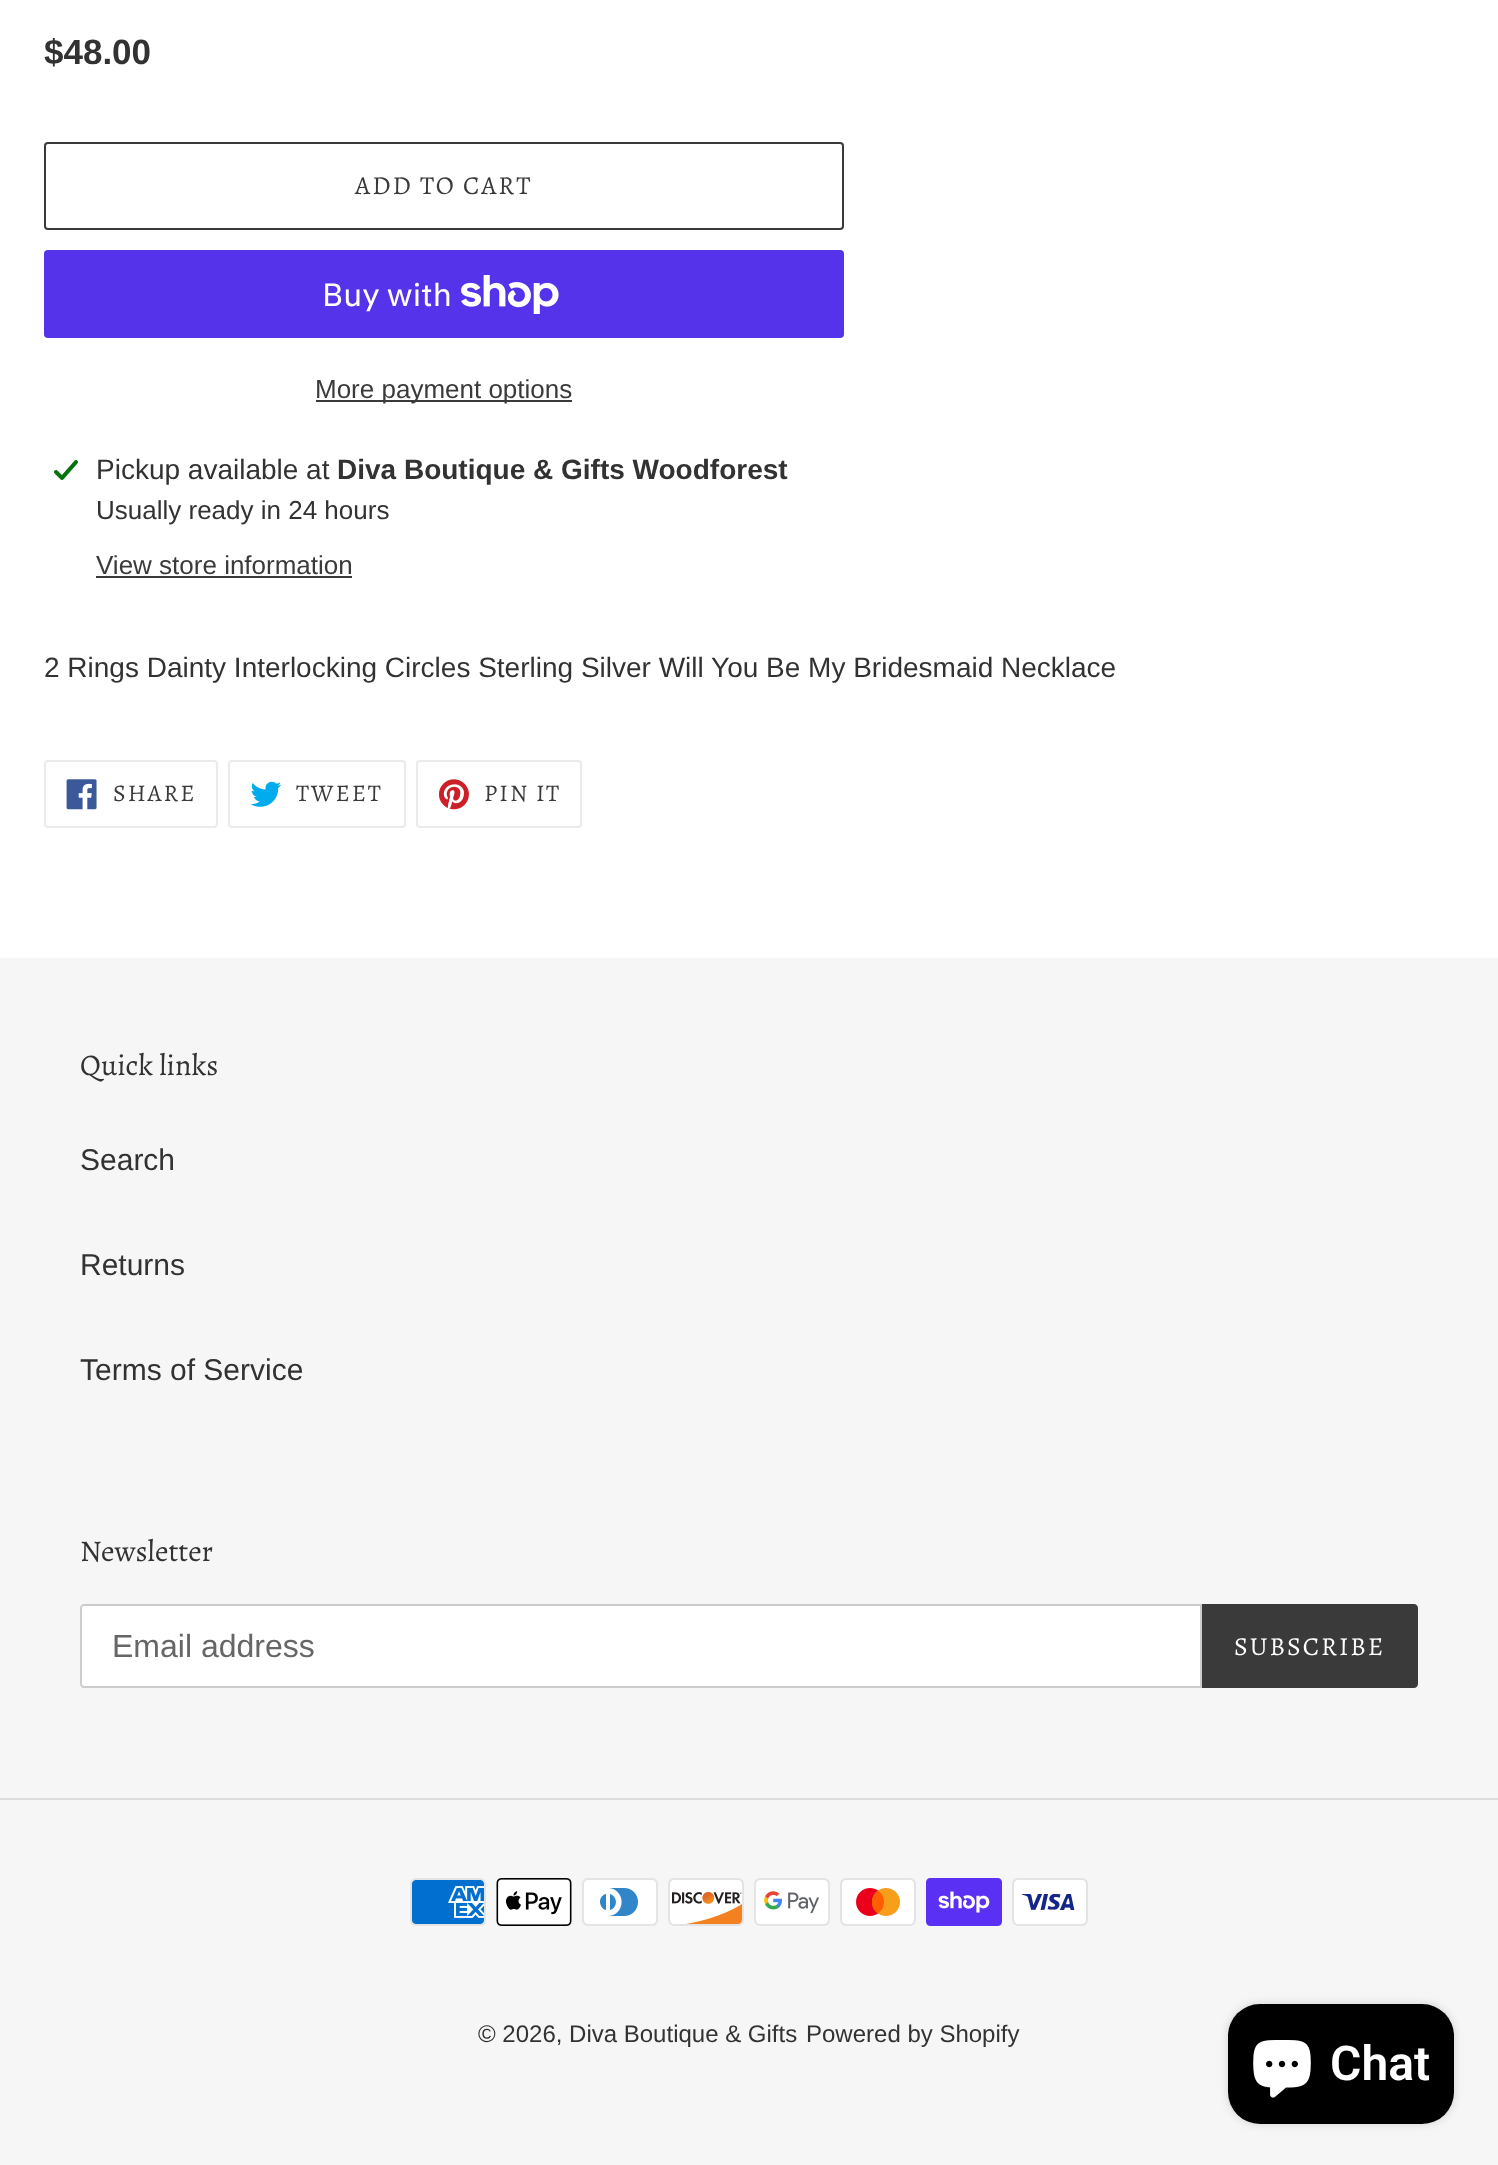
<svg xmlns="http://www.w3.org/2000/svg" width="1498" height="2165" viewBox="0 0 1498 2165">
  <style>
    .t1 { font: bold 35px Liberation Sans; fill: #333232; }
    .t2 { font: 26px Alegreya; letter-spacing: 2px; fill: #3a3a3a; }
    .t3 { font: 32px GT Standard; fill: #fff; }
    .t4 { font: 26px Liberation Sans; fill: #3a3a3a; }
    .t5 { font: 28px Liberation Sans; fill: #333232; }
    .t6 { font: bold 28px Liberation Sans; fill: #333232; }
    .t7 { font: 26px Liberation Sans; fill: #333232; }
    .t8 { font: 24px Alegreya; letter-spacing: 2px; fill: #3a3a3a; }
    .t9 { font: 30px Alegreya; fill: #333232; }
    .t10 { font: 30px Liberation Sans; fill: #333232; }
    .t11 { font: 32px Liberation Sans; fill: #666; }
    .t12 { font: 26px Alegreya; letter-spacing: 2px; fill: #fff; }
    .t13 { font: 24px Liberation Sans; fill: #333232; }
    .t14 { font: 600 48px Roboto; fill: #fff; }
  </style>
  <rect width="100%" height="100%" fill="#fff"/>
  <text x="44" y="64" class="t1">$48.00</text>
  <rect x="45" y="143" width="798" height="86" rx="3" fill="none" stroke="#3a3a3a" stroke-width="2"/>
  <text x="355" y="194" class="t2">ADD TO CART</text>
  <rect x="44" y="250" width="800" height="88" rx="4" fill="#5433eb"/>
  <text x="322" y="306" class="t3">Buy with</text>
  <image x="461" y="275" width="98" height="39" href="images/1.png"/>
  <rect x="316" y="400" width="256" height="2" fill="#3a3a3a"/>
  <text x="315" y="398" class="t4">More payment options</text>
  <image x="54" y="460" width="24" height="20" href="images/2.png"/>
  <text x="96" y="479" class="t5">Pickup available at</text>
  <text x="337" y="479" class="t6">Diva Boutique &amp; Gifts Woodforest</text>
  <text x="96" y="519" class="t7">Usually ready in 24 hours</text>
  <text x="96" y="574" class="t4">View store information</text>
  <rect x="96" y="576" width="256" height="2" fill="#3a3a3a"/>
  <text x="44" y="677" class="t5">2 Rings Dainty Interlocking Circles Sterling Silver Will You Be My Bridesmaid Necklace</text>
  <rect x="45" y="761" width="172" height="66" rx="3" fill="none" stroke="#ebebeb" stroke-width="2"/>
  <image x="66" y="779" width="31" height="31" href="images/3.png"/>
  <text x="113" y="801" class="t8">SHARE</text>
  <rect x="229" y="761" width="176" height="66" rx="3" fill="none" stroke="#ebebeb" stroke-width="2"/>
  <image x="250" y="781" width="32" height="26" href="images/4.png"/>
  <text x="296" y="801" class="t8">TWEET</text>
  <rect x="417" y="761" width="164" height="66" rx="3" fill="none" stroke="#ebebeb" stroke-width="2"/>
  <image x="438" y="779" width="31" height="31" href="images/5.png"/>
  <text x="484" y="801" class="t8">PIN IT</text>
  <rect x="0" y="958" width="1498" height="1207" fill="#f6f6f6"/>
  <text x="80" y="1075" class="t9">Quick links</text>
  <text x="80" y="1170" class="t10">Search</text>
  <text x="80" y="1275" class="t10">Returns</text>
  <text x="80" y="1380" class="t10">Terms of Service</text>
  <text x="80" y="1561" class="t9">Newsletter</text>
  <path d="M84 1605H1201V1687H84C82.5 1687 81 1685.5 81 1684V1608C81 1606.5 82.5 1605 84 1605Z" fill="#fff" stroke="#ccc" stroke-width="2"/>
  <text x="112" y="1657" class="t11">Email address</text>
  <path d="M1202 1604H1414C1416 1604 1418 1606 1418 1608V1684C1418 1686 1416 1688 1414 1688H1202Z" fill="#3a3a3a"/>
  <text x="1234" y="1655" class="t12">SUBSCRIBE</text>
  <rect x="0" y="1798" width="1498" height="2" fill="#ddd"/>
  <image x="410" y="1878" width="76" height="48" href="images/6.png"/>
  <image x="496" y="1878" width="76" height="48" href="images/7.png"/>
  <image x="582" y="1878" width="76" height="48" href="images/8.png"/>
  <image x="668" y="1878" width="76" height="48" href="images/9.png"/>
  <image x="754" y="1878" width="76" height="48" href="images/10.png"/>
  <image x="840" y="1878" width="76" height="48" href="images/11.png"/>
  <image x="926" y="1878" width="76" height="48" href="images/12.png"/>
  <image x="1012" y="1878" width="76" height="48" href="images/13.png"/>
  <text x="478" y="2042" class="t13">© 2026, Diva Boutique &amp; Gifts</text>
  <text x="806" y="2042" class="t13">Powered by Shopify</text>
  <rect x="1228" y="2004" width="226" height="120" rx="32" fill="#00000026" filter="blur(5px)"/>
  <rect x="1228" y="2004" width="226" height="120" rx="32" fill="#000"/>
  <image x="1253" y="2040" width="58" height="58" href="images/14.png"/>
  <text x="1330" y="2080" class="t14">Chat</text>
</svg>
